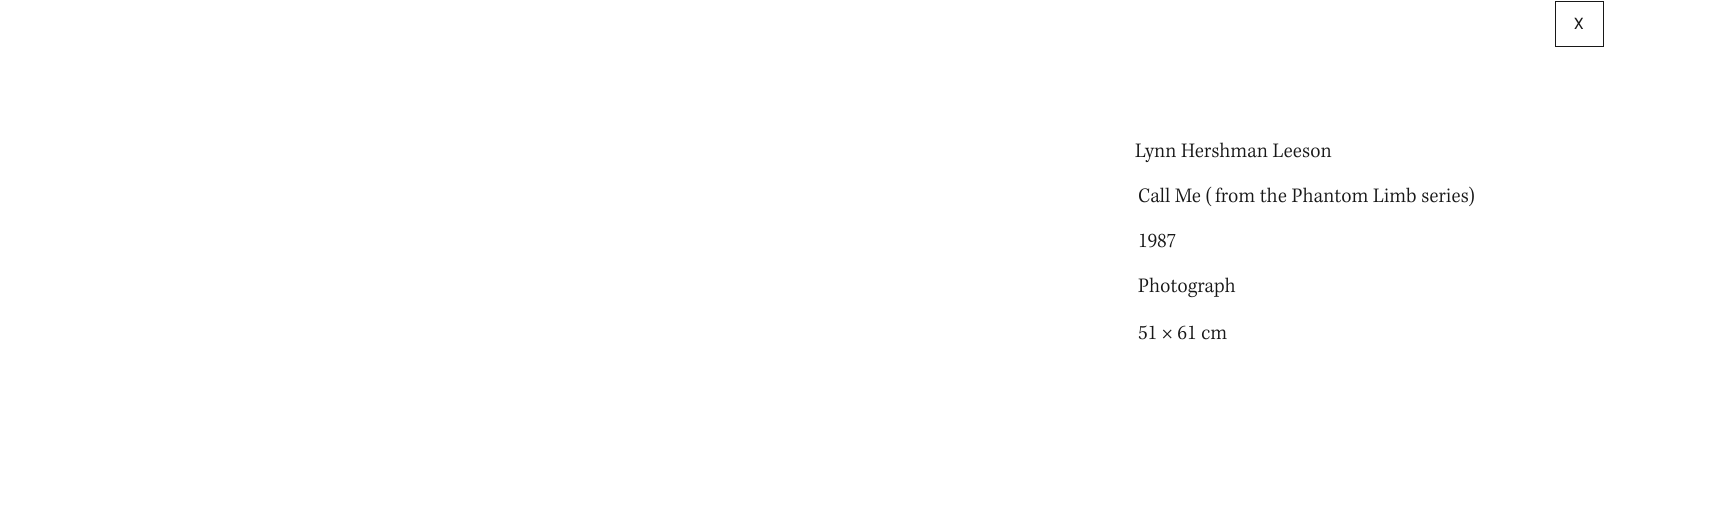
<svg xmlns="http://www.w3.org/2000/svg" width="1711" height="523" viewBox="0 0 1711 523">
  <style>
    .t1 { font: 16px Poppins; fill: #181818; }
  </style>
  <rect width="100%" height="100%" fill="#fff"/>
  <rect x="1555.5" y="1.5" width="48" height="45" fill="none" stroke="#181818"/>
  <text x="1574" y="29" class="t1">X</text>
  <image x="1135" y="142" width="197" height="21" href="images/1.png"/>
  <image x="1139" y="186" width="335" height="21" href="images/2.png"/>
  <image x="1139" y="233" width="37" height="15" href="images/3.png"/>
  <image x="1138" y="277" width="98" height="21" href="images/4.png"/>
  <image x="1138" y="325" width="89" height="15" href="images/5.png"/>
</svg>
